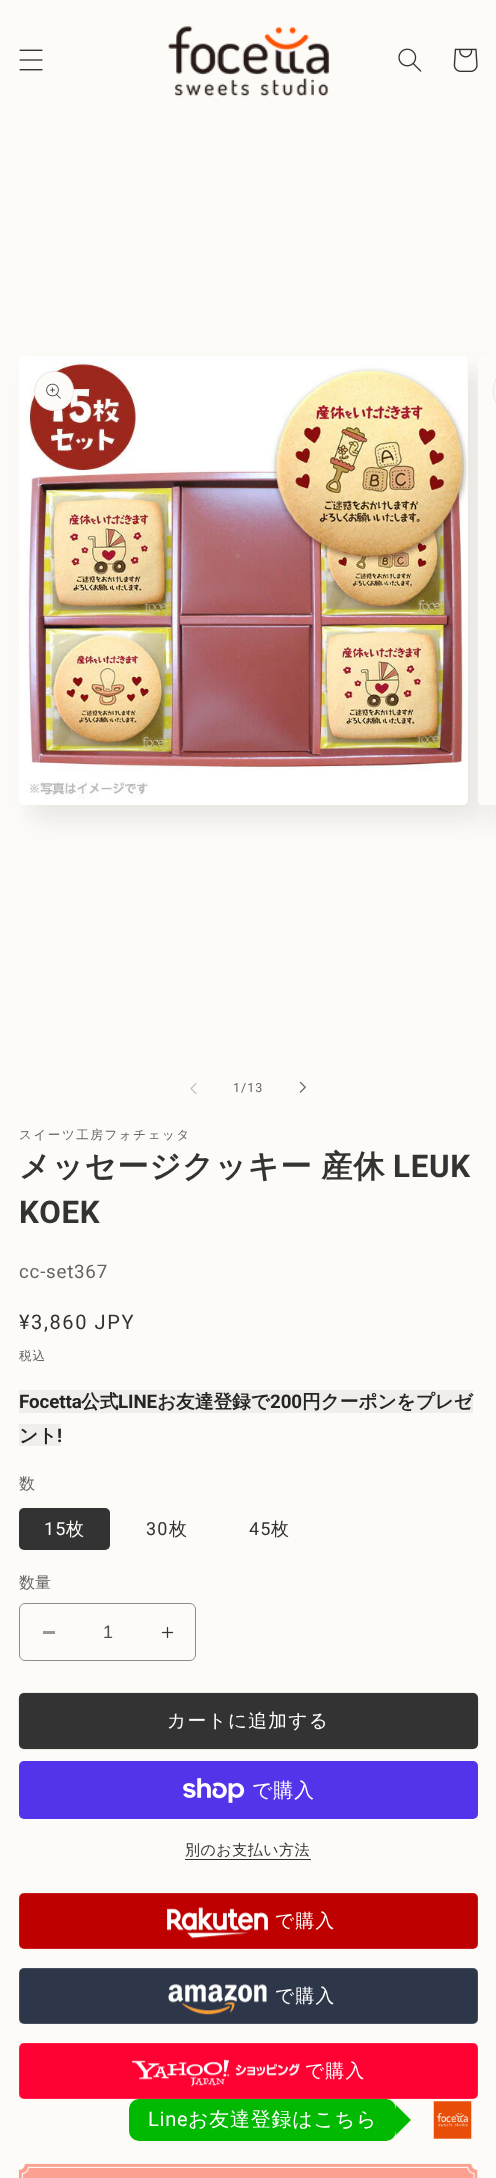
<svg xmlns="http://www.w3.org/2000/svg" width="496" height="2178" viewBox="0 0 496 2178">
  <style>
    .t1 { font: 12.5px Roboto; letter-spacing: 1px; fill: #666564; }
    .t2 { font: 500 12.5px WenQuanYi Zen Hei; letter-spacing: 1.6px; fill: #666564; }
    .t3 { font: bold 31.25px WenQuanYi Zen Hei; letter-spacing: 0.75px; fill: #333; }
    .t4 { font: bold 31.25px Roboto; letter-spacing: 0.75px; fill: #333; }
    .t5 { font: 18.75px Roboto; letter-spacing: 0.75px; fill: #666564; }
    .t6 { font: 20px Roboto; letter-spacing: 1.6px; fill: #333; }
    .t7 { font: 500 12.5px WenQuanYi Zen Hei; letter-spacing: 1px; fill: #666564; }
    .t8 { font: bold 18.75px Roboto; letter-spacing: -0.1px; fill: #242423; }
    .t9 { font: bold 18.75px WenQuanYi Zen Hei; letter-spacing: -0.1px; fill: #242423; }
    .t10 { font: 500 16px WenQuanYi Zen Hei; fill: #666564; }
    .t11 { font: 18px Roboto; letter-spacing: 1.25px; fill: #fdfbf7; }
    .t12 { font: 500 18px WenQuanYi Zen Hei; letter-spacing: 1.25px; fill: #fdfbf7; }
    .t13 { font: 18px Roboto; letter-spacing: 1.25px; fill: #333; }
    .t14 { font: 500 18px WenQuanYi Zen Hei; letter-spacing: 1.25px; fill: #333; }
    .t15 { font: 18px Liberation Sans; fill: #515150; }
    .t16 { font: 500 18.75px WenQuanYi Zen Hei; letter-spacing: 1.25px; fill: #fff; }
    .t17 { font: 500 20px WenQuanYi Zen Hei; letter-spacing: 0.75px; fill: #fff; }
    .t18 { font: 500 15px WenQuanYi Zen Hei; letter-spacing: 0.5px; fill: #333; }
    .t19 { font: 20px Roboto; letter-spacing: 0.75px; fill: #fff; }
  </style>
  <rect width="100%" height="100%" fill="#fdfbf7"/>
  <image x="19" y="49" width="24" height="22" href="images/1.png"/>
  <image x="168" y="26" width="162" height="71" href="images/2.png"/>
  <image x="398" y="48" width="24" height="24" href="images/3.png"/>
  <image x="453" y="48" width="25" height="24" href="images/4.png"/>
  <rect x="31" y="371" width="449" height="449" rx="5" fill="#3333331a" filter="blur(12.5px)"/>
  <rect x="490" y="371" width="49" height="449" rx="5" fill="#3333331a" filter="blur(12.5px)"/>
  <rect x="19" y="356" width="449" height="449" rx="5" fill="#fdfbf7"/>
  <image x="19" y="356" width="448" height="449" href="images/5.png"/>
  <circle cx="54" cy="391" r="20" fill="#fdfbf7"/>
  <circle cx="54" cy="391" r="19.5" fill="none" stroke="#3333331a"/>
  <image x="46" y="383" width="15" height="16" href="images/6.png"/>
  <path d="M483 356H496V805H483C480 805 478 803 478 800V361C478 358 480 356 483 356Z" fill="#fdfbf7"/>
  <rect x="493.5" y="371.5" width="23" height="39" rx="19.5" fill="none" stroke="#e9e7e3"/>
  <image x="190" y="1083" width="7" height="11" href="images/7.png"/>
  <text x="233" y="1092" class="t1">1/13</text>
  <image x="299" y="1081" width="7" height="12" href="images/8.png"/>
  <text x="19" y="1139" class="t2">スイーツ工房フォチェッタ</text>
  <text x="19" y="1177" word-spacing="-1" class="t3">メッセージクッキー 産休</text>
  <text x="393" y="1177" class="t4">LEUK</text>
  <text x="19" y="1223" class="t4">KOEK</text>
  <text x="19" y="1278" class="t5">cc-set367</text>
  <text x="19" y="1329" class="t6">¥3,860 JPY</text>
  <text x="19" y="1360" class="t7">税込</text>
  <rect x="19" y="1390" width="454" height="23" fill="#f0eeeb"/>
  <text x="19" y="1408" class="t8">Focetta</text>
  <text x="81" y="1408" class="t9">公式</text>
  <text x="118" y="1408" class="t8">LINE</text>
  <text x="157" y="1408" class="t9">お友達登録で</text>
  <text x="270" y="1408" class="t8">200</text>
  <text x="302" y="1408" class="t9">円クーポンをプレゼ</text>
  <rect x="19" y="1424" width="42" height="22" fill="#f0eeeb"/>
  <text x="19" y="1442" class="t9">ント</text>
  <text x="57" y="1442" class="t8">!</text>
  <text x="19" y="1489" class="t10">数</text>
  <rect x="19" y="1508" width="91" height="42" rx="5" fill="#333"/>
  <text x="44" y="1535" class="t11">15</text>
  <text x="66" y="1535" class="t12">枚</text>
  <text x="146" y="1535" class="t13">30</text>
  <text x="169" y="1535" class="t14">枚</text>
  <text x="249" y="1535" class="t13">45</text>
  <text x="271" y="1535" class="t14">枚</text>
  <text x="19" y="1588" class="t10">数量</text>
  <rect x="43" y="1631" width="12" height="3" fill="#989795"/>
  <image x="161" y="1626" width="13" height="13" href="images/9.png"/>
  <rect x="19.5" y="1603.5" width="176" height="57" rx="5.5" fill="none" stroke="#8e8d8b"/>
  <text x="103" y="1638" class="t15">1</text>
  <rect x="19" y="1693" width="459" height="56" rx="5" fill="#333"/>
  <rect x="19.2" y="1693.2" width="458.6" height="55.6" rx="4.8" fill="none" stroke="#33333399" stroke-width="0.4"/>
  <text x="167" y="1727" class="t16">カートに追加する</text>
  <rect x="19" y="1761" width="459" height="58" rx="5" fill="#5433eb"/>
  <image x="183" y="1778" width="62" height="25" href="images/10.png"/>
  <text x="252" y="1797" class="t17">で購入</text>
  <text x="185" y="1855" class="t18">別のお支払い方法</text>
  <rect x="185" y="1859" width="126" height="1" fill="#333"/>
  <rect x="19" y="1893" width="459" height="56" rx="5" fill="#bf0000"/>
  <image x="167" y="1907" width="101" height="32" href="images/11.png"/>
  <rect x="19.2" y="1893.2" width="458.6" height="55.6" rx="4.8" fill="none" stroke="#ffffff66" stroke-width="0.4"/>
  <text x="275" y="1927" class="t16">で購入</text>
  <rect x="19" y="1968" width="459" height="56" rx="5" fill="#2d3749"/>
  <image x="168" y="1984" width="99" height="31" href="images/12.png"/>
  <rect x="19.2" y="1968.2" width="458.6" height="55.6" rx="4.8" fill="none" stroke="#ffffff66" stroke-width="0.4"/>
  <text x="275" y="2002" class="t16">で購入</text>
  <rect x="19" y="2043" width="459" height="56" rx="5" fill="#ff0133"/>
  <image x="132" y="2059" width="168" height="28" href="images/13.png"/>
  <rect x="19.2" y="2043.2" width="458.6" height="55.6" rx="4.8" fill="none" stroke="#ffffff66" stroke-width="0.4"/>
  <text x="305" y="2077" class="t16">で購入</text>
  <image x="18" y="2163" width="460" height="15" href="images/14.png"/>
  <rect x="129" y="2099" width="267" height="42" rx="10" fill="#00b900"/>
  <text x="148" y="2126" class="t19">Line</text>
  <text x="188" y="2126" class="t17">お友達登録はこちら</text>
  <path d="M396 2135V2105L411 2120Z" fill="#00b900"/>
  <image x="433" y="2101" width="39" height="38" href="images/15.png"/>
</svg>
